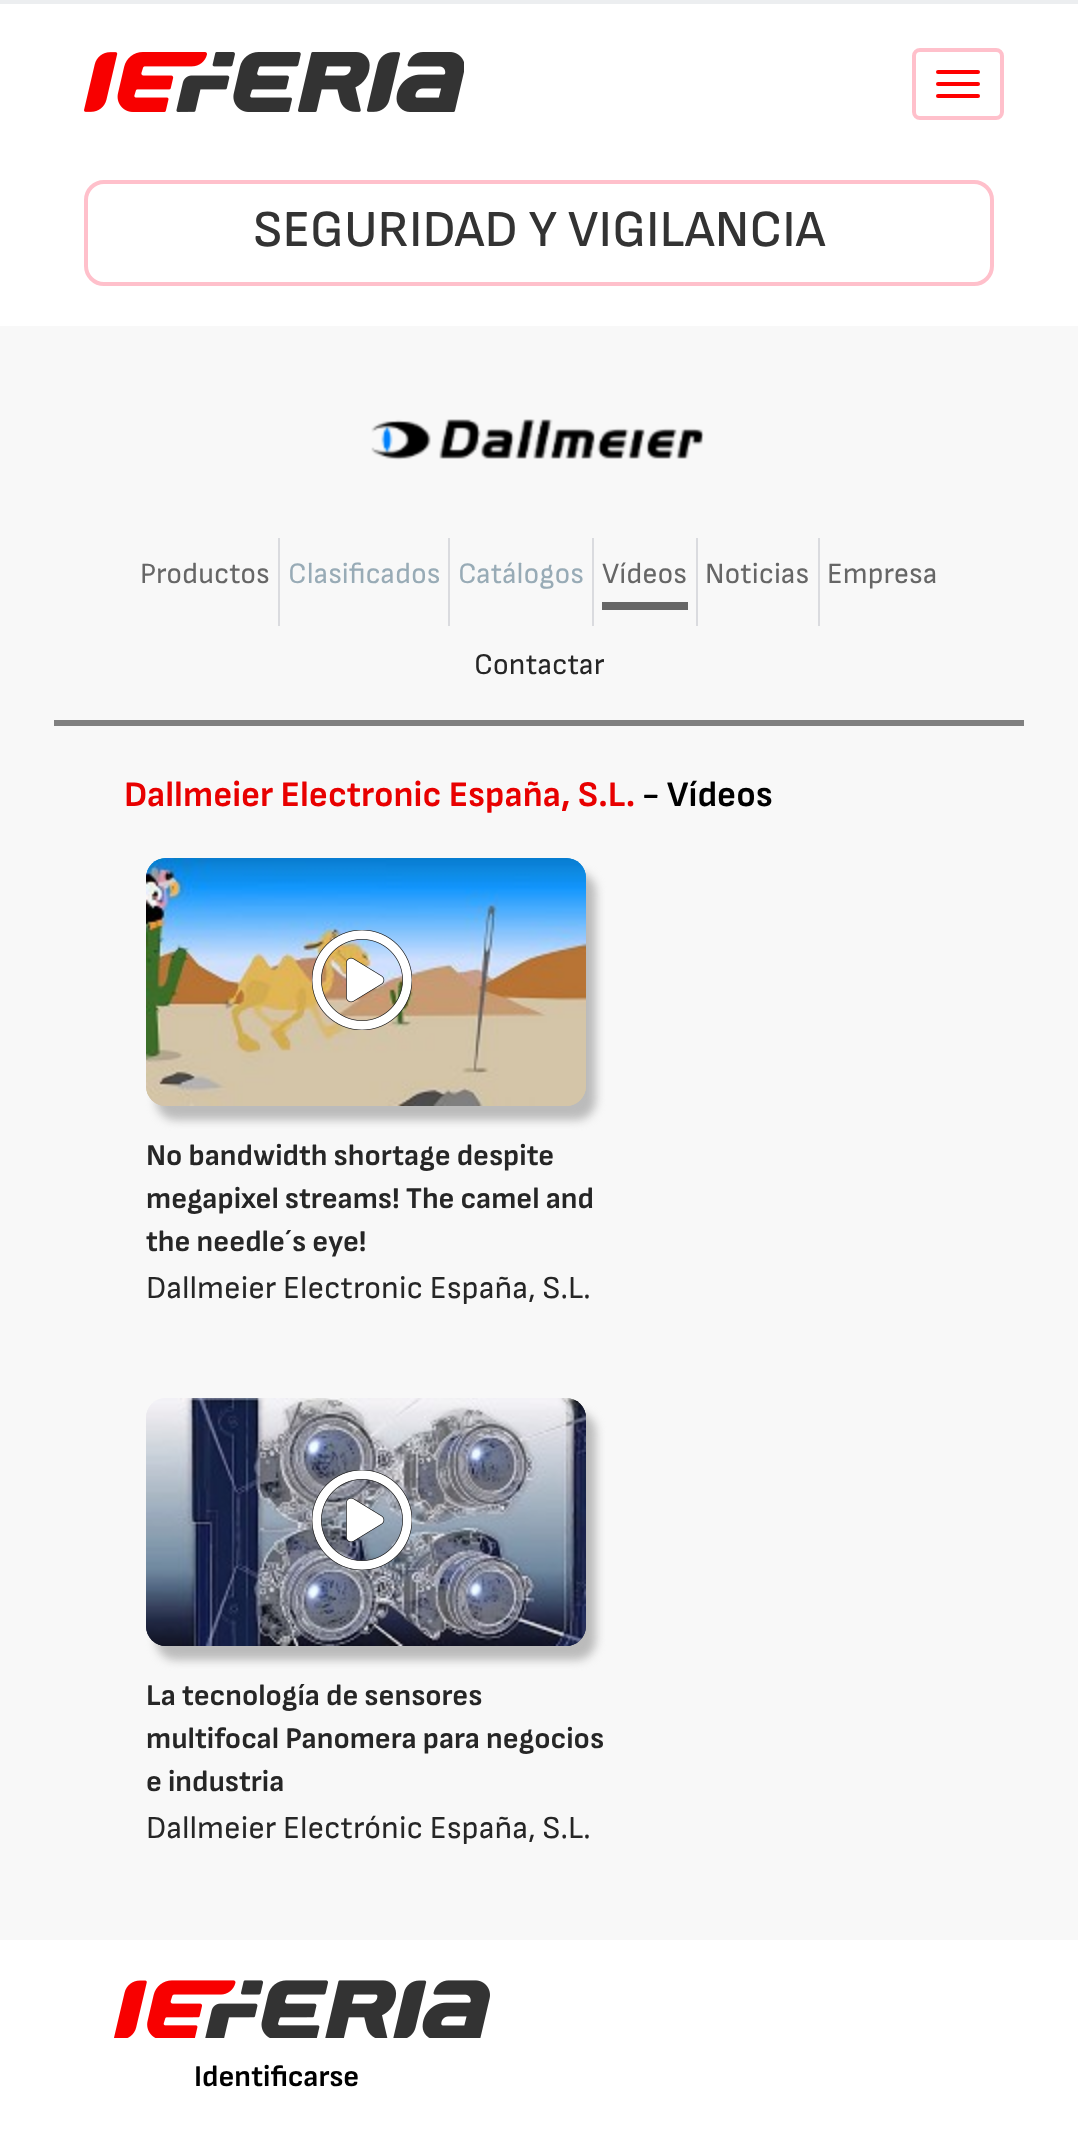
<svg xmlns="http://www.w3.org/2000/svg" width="1078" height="2139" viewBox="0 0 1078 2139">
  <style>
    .t1 { font: 500 52px Sofia Sans; fill: #333; }
    .t2 { font: 29.5px Sofia Sans; fill: #666; }
    .t3 { font: 29.5px Sofia Sans; fill: #98abb6; }
    .t4 { font: 30px Sofia Sans; fill: #262626; }
    .t5 { font: bold 36px Sofia Sans; fill: #e80000; }
    .t6 { font: bold 36px Sofia Sans; fill: #000; }
    .t7 { font: bold 30px Sofia Sans; fill: #262626; }
    .t8 { font: 32px Sofia Sans; fill: #262626; }
    .t9 { font: bold 30px Sofia Sans; fill: #000; }
  </style>
  <rect width="100%" height="100%" fill="#fff"/>
  <rect x="0" y="0" width="1078" height="4" fill="#eceef0"/>
  <image x="84" y="52" width="380" height="60" href="images/1.png"/>
  <rect x="914" y="50" width="88" height="68" rx="6" fill="none" stroke="#ffc0cb" stroke-width="4"/>
  <rect x="936" y="70" width="44" height="4" rx="2" fill="#f00"/>
  <rect x="936" y="82" width="44" height="4" rx="2" fill="#f00"/>
  <rect x="936" y="94" width="44" height="4" rx="2" fill="#f00"/>
  <rect x="86" y="182" width="906" height="102" rx="18" fill="none" stroke="#ffc0cb" stroke-width="4"/>
  <text x="253" y="246" class="t1">SEGURIDAD Y VIGILANCIA</text>
  <rect x="0" y="326" width="1078" height="1614" fill="#f8f8f8"/>
  <rect x="54" y="720" width="970" height="6" fill="#808080"/>
  <image x="371" y="419" width="333" height="41" href="images/2.png"/>
  <text x="140" y="583" class="t2">Productos</text>
  <rect x="278" y="538" width="2" height="88" fill="#dadbdf"/>
  <text x="288" y="583" class="t3">Clasificados</text>
  <rect x="448" y="538" width="2" height="88" fill="#dadbdf"/>
  <text x="458" y="583" class="t3">Catálogos</text>
  <rect x="592" y="538" width="2" height="88" fill="#dadbdf"/>
  <rect x="602" y="602" width="86" height="8" fill="#666"/>
  <text x="602" y="583" class="t2">Vídeos</text>
  <rect x="696" y="538" width="2" height="88" fill="#dadbdf"/>
  <text x="705" y="583" class="t2">Noticias</text>
  <rect x="818" y="538" width="2" height="88" fill="#dadbdf"/>
  <text x="827" y="583" class="t2">Empresa</text>
  <text x="474" y="674" class="t4">Contactar</text>
  <text x="124" y="806" class="t5">Dallmeier Electronic España, S.L.</text>
  <text x="642" y="806" class="t6">- Vídeos</text>
  <rect x="156" y="872" width="440" height="248" rx="20" fill="#bbb" filter="blur(5px)"/>
  <image x="146" y="858" width="440" height="248" href="images/3.png"/>
  <image x="146" y="858" width="440" height="248" href="images/4.png"/>
  <image x="312" y="930" width="100" height="100" href="images/5.png"/>
  <text x="146" y="1165" class="t7">No bandwidth shortage despite</text>
  <text x="146" y="1208" class="t7">megapixel streams! The camel and</text>
  <text x="146" y="1251" class="t7">the needle´s eye!</text>
  <text x="146" y="1298" class="t8">Dallmeier Electronic España, S.L.</text>
  <rect x="156" y="1412" width="440" height="248" rx="20" fill="#bbb" filter="blur(5px)"/>
  <image x="146" y="1398" width="440" height="248" href="images/6.png"/>
  <image x="146" y="1398" width="440" height="248" href="images/7.png"/>
  <image x="312" y="1470" width="100" height="100" href="images/8.png"/>
  <text x="146" y="1705" class="t7">La tecnología de sensores</text>
  <text x="146" y="1748" class="t7">multifocal Panomera para negocios</text>
  <text x="146" y="1791" class="t7">e industria</text>
  <text x="146" y="1838" class="t8">Dallmeier Electrónic España, S.L.</text>
  <image x="114" y="1980" width="376" height="58" href="images/9.png"/>
  <text x="194" y="2086" class="t9">Identificarse</text>
</svg>
